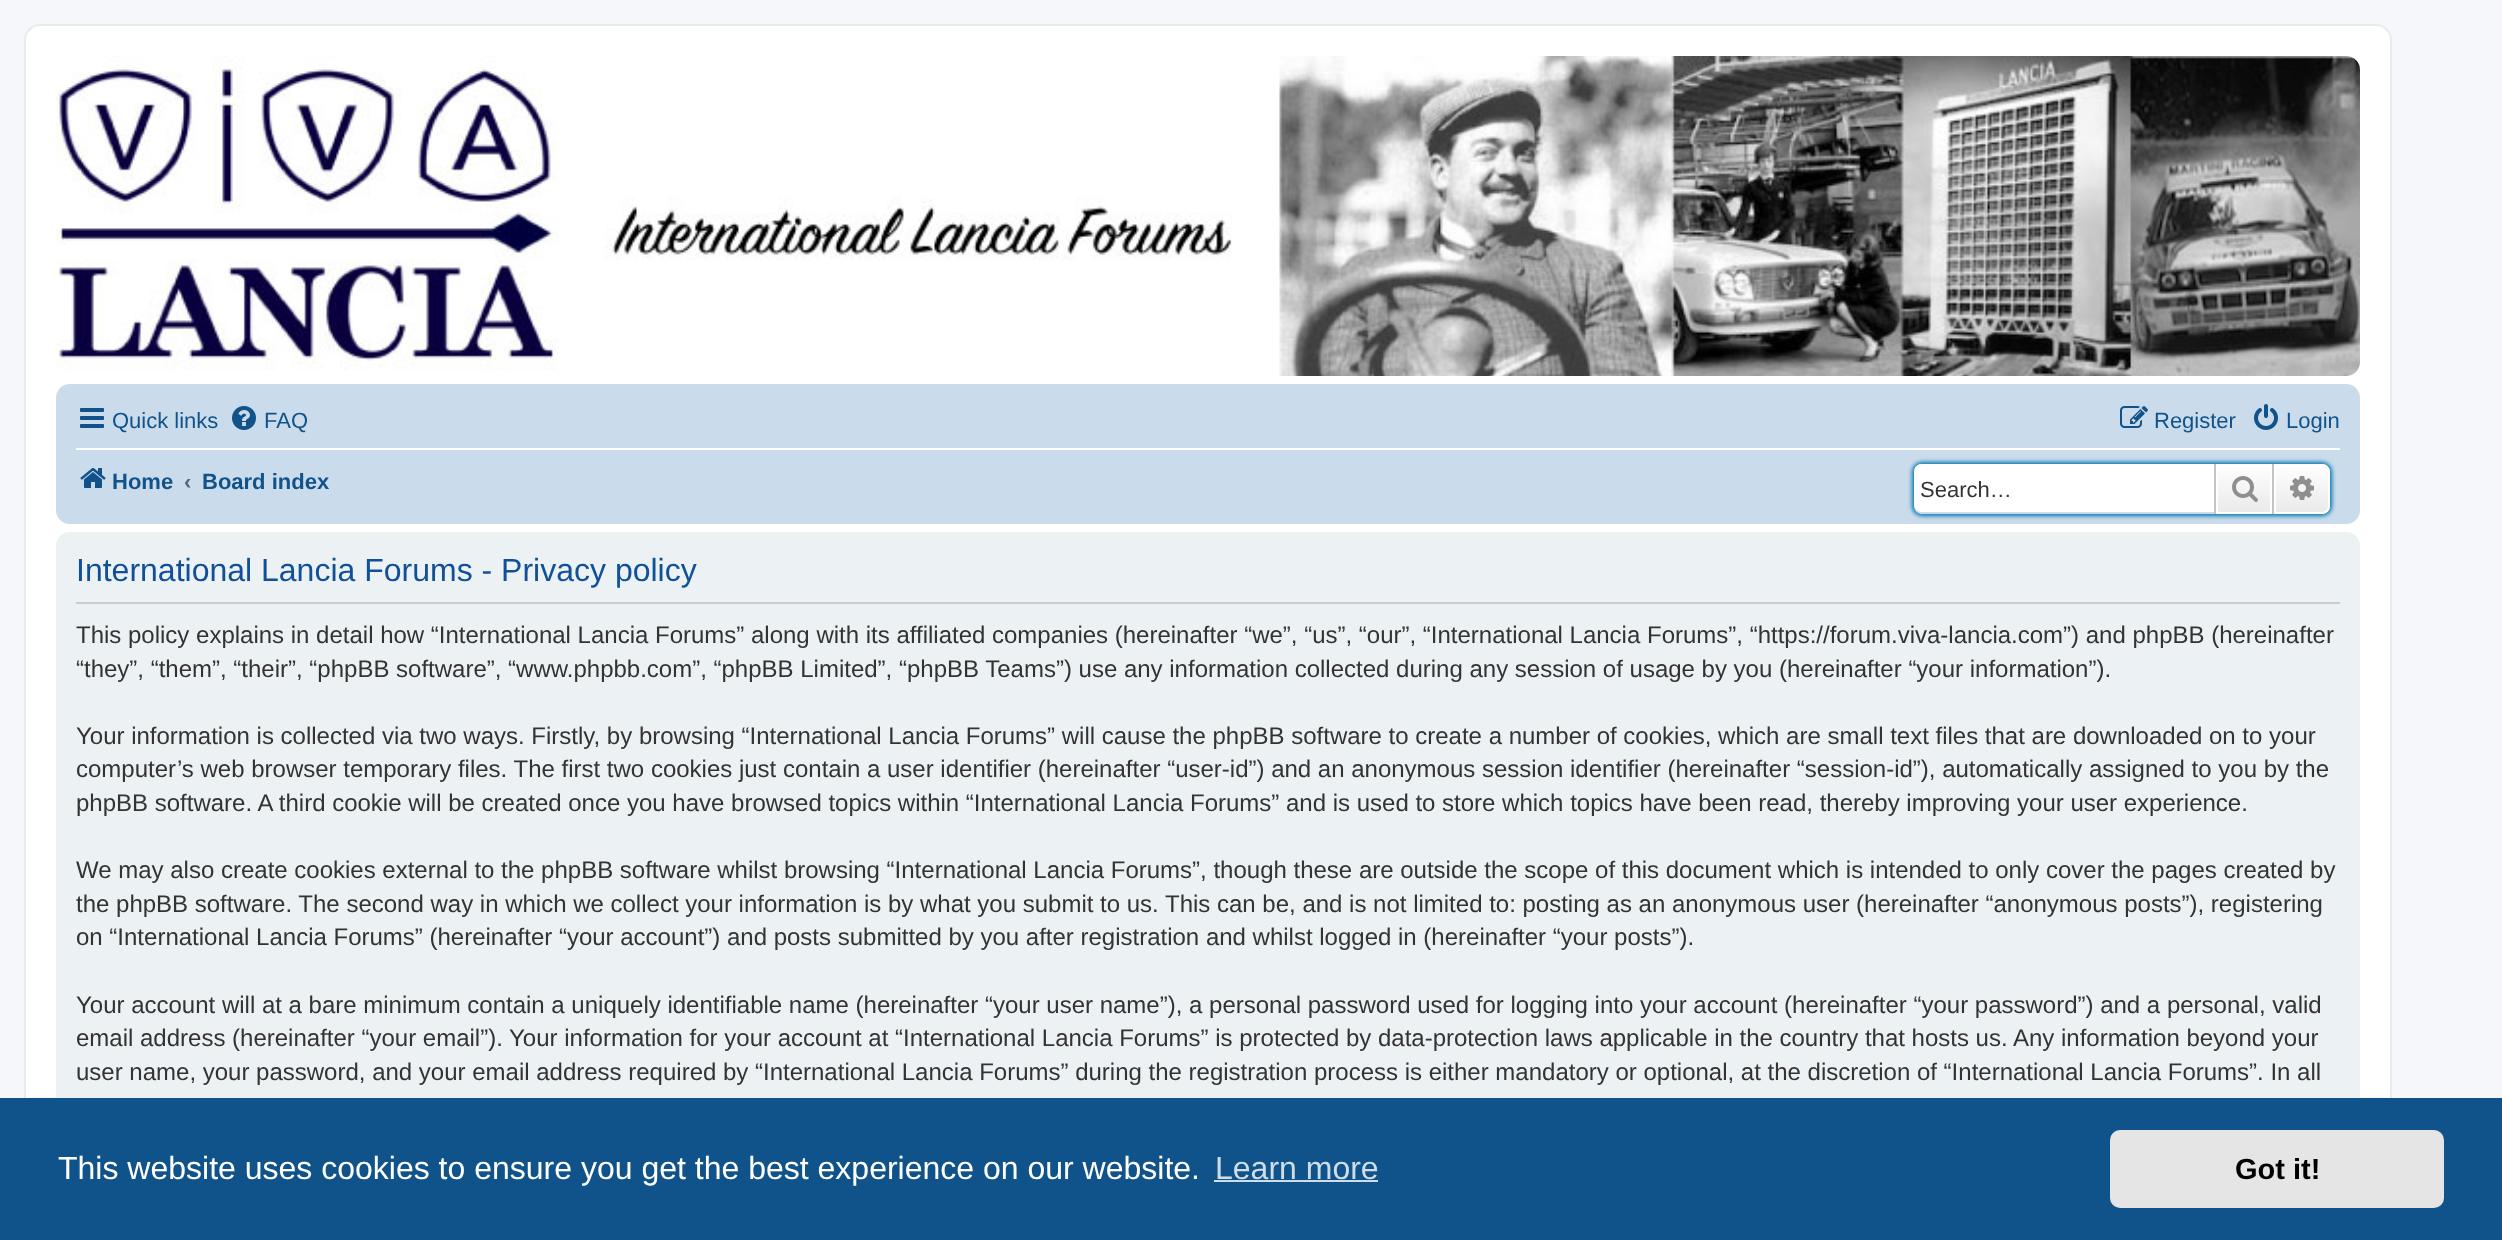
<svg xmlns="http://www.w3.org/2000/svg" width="2502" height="1240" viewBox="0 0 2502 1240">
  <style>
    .t1 { font: 22px Liberation Sans; fill: #105289; }
    .t2 { font: bold 22px Liberation Sans; fill: #105289; }
    .t3 { font: bold 22px Liberation Sans; fill: #536482; }
    .t4 { font: 22px Liberation Sans; fill: #333; }
    .t5 { font: 32px Liberation Sans; fill: #115098; }
    .t6 { font: 24px Liberation Sans; fill: #333; }
    .t7 { font: 32px Liberation Sans; fill: #fff; }
    .t8 { font: 32px Liberation Sans; fill: #cfdde8; }
    .t9 { font: bold 29px Liberation Sans; fill: #000; }
  </style>
  <defs>
    <clipPath id="clip1"><path d="M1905 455H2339V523H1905ZM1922 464H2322C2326.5 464 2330 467.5 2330 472V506C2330 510.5 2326.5 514 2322 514H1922C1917.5 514 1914 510.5 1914 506V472C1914 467.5 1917.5 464 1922 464Z" clip-rule="evenodd"/></clipPath>
    <linearGradient id="g1" gradientUnits="userSpaceOnUse" x1="2244" y1="464" x2="2244" y2="514"><stop offset="0" stop-color="#fff"/><stop offset="1" stop-color="#e9e9e9"/></linearGradient>
    <linearGradient id="g2" gradientUnits="userSpaceOnUse" x1="2302" y1="464" x2="2302" y2="514"><stop offset="0" stop-color="#fff"/><stop offset="1" stop-color="#e9e9e9"/></linearGradient>
  </defs>
  <rect width="100%" height="100%" fill="#f5f7fa"/>
  <rect x="25" y="25" width="2366" height="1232" rx="15" fill="#fff" stroke="#e6e9ed" stroke-width="2"/>
  <image x="56" y="56" width="2304" height="320" href="images/1.png"/>
  <rect x="56" y="384" width="2304" height="140" rx="14" fill="#cadceb"/>
  <image x="80" y="408" width="24" height="20" href="images/2.png"/>
  <text x="112" y="428" class="t1">Quick links</text>
  <image x="232" y="406" width="24" height="24" href="images/3.png"/>
  <text x="264" y="428" class="t1">FAQ</text>
  <image x="2120" y="406" width="28" height="22" href="images/4.png"/>
  <text x="2154" y="428" class="t1">Register</text>
  <image x="2254" y="404" width="24" height="26" href="images/5.png"/>
  <text x="2286" y="428" class="t1">Login</text>
  <rect x="76" y="448" width="2264" height="2" fill="#fff"/>
  <image x="80" y="468" width="26" height="20" href="images/6.png"/>
  <text x="112" y="489" class="t2">Home</text>
  <text x="184" y="489" class="t3">‹</text>
  <text x="202" y="489" class="t2">Board index</text>
  <g clip-path="url(#clip1)">
    <rect x="1912" y="462" width="420" height="54" rx="10" fill="#0075b0" filter="blur(2px)"/>
  </g>
  <path d="M1922 464H2214V512H1922C1917.5 512 1914 508.5 1914 504V472C1914 467.5 1917.5 464 1922 464Z" fill="#fff"/>
  <text x="1920" y="497" class="t4">Search…</text>
  <rect x="2218" y="466" width="52" height="46" fill="url(#g1)"/>
  <rect x="2217" y="465" width="54" height="48" fill="none" stroke="#fff" stroke-width="2"/>
  <rect x="2272" y="464" width="2" height="50" fill="#c7c3bf"/>
  <rect x="2214" y="464" width="2" height="50" fill="#c7c3bf"/>
  <image x="2232" y="476" width="26" height="26" href="images/7.png"/>
  <path d="M2275 465H2322C2326 465 2329 468 2329 472V506C2329 510 2326 513 2322 513H2275Z" fill="url(#g2)" stroke="#fff" stroke-width="2"/>
  <image x="2290" y="476" width="24" height="24" href="images/8.png"/>
  <rect x="56" y="532" width="2304" height="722" rx="14" fill="#ecf1f3"/>
  <rect x="76" y="602" width="2264" height="2" fill="#ccc"/>
  <text x="76" y="581" class="t5">International Lancia Forums - Privacy policy</text>
  <text x="76" y="643" class="t6">This policy explains in detail how “International Lancia Forums” along with its affiliated companies (hereinafter “we”, “us”, “our”, “International Lancia Forums”, “https://forum.viva-lancia.com”) and phpBB (hereinafter</text>
  <text x="76" y="677" class="t6">“they”, “them”, “their”, “phpBB software”, “www.phpbb.com”, “phpBB Limited”, “phpBB Teams”) use any information collected during any session of usage by you (hereinafter “your information”).</text>
  <text x="76" y="744" class="t6">Your information is collected via two ways. Firstly, by browsing “International Lancia Forums” will cause the phpBB software to create a number of cookies, which are small text files that are downloaded on to your</text>
  <text x="76" y="777" class="t6">computer’s web browser temporary files. The first two cookies just contain a user identifier (hereinafter “user-id”) and an anonymous session identifier (hereinafter “session-id”), automatically assigned to you by the</text>
  <text x="76" y="811" class="t6">phpBB software. A third cookie will be created once you have browsed topics within “International Lancia Forums” and is used to store which topics have been read, thereby improving your user experience.</text>
  <text x="76" y="878" class="t6">We may also create cookies external to the phpBB software whilst browsing “International Lancia Forums”, though these are outside the scope of this document which is intended to only cover the pages created by</text>
  <text x="76" y="912" class="t6">the phpBB software. The second way in which we collect your information is by what you submit to us. This can be, and is not limited to: posting as an anonymous user (hereinafter “anonymous posts”), registering</text>
  <text x="76" y="945" class="t6">on “International Lancia Forums” (hereinafter “your account”) and posts submitted by you after registration and whilst logged in (hereinafter “your posts”).</text>
  <text x="76" y="1013" class="t6">Your account will at a bare minimum contain a uniquely identifiable name (hereinafter “your user name”), a personal password used for logging into your account (hereinafter “your password”) and a personal, valid</text>
  <text x="76" y="1046" class="t6">email address (hereinafter “your email”). Your information for your account at “International Lancia Forums” is protected by data-protection laws applicable in the country that hosts us. Any information beyond your</text>
  <text x="76" y="1080" class="t6">user name, your password, and your email address required by “International Lancia Forums” during the registration process is either mandatory or optional, at the discretion of “International Lancia Forums”. In all</text>
  <rect x="0" y="1098" width="2502" height="142" fill="#0f538a"/>
  <text x="58" y="1179" class="t7">This website uses cookies to ensure you get the best experience on our website.</text>
  <text x="1215" y="1179" class="t8">Learn more</text>
  <rect x="1214" y="1180" width="164" height="2" fill="#cfdde8"/>
  <rect x="2110" y="1130" width="334" height="78" rx="10" fill="#e5e5e5"/>
  <text x="2235" y="1179" class="t9">Got it!</text>
</svg>
